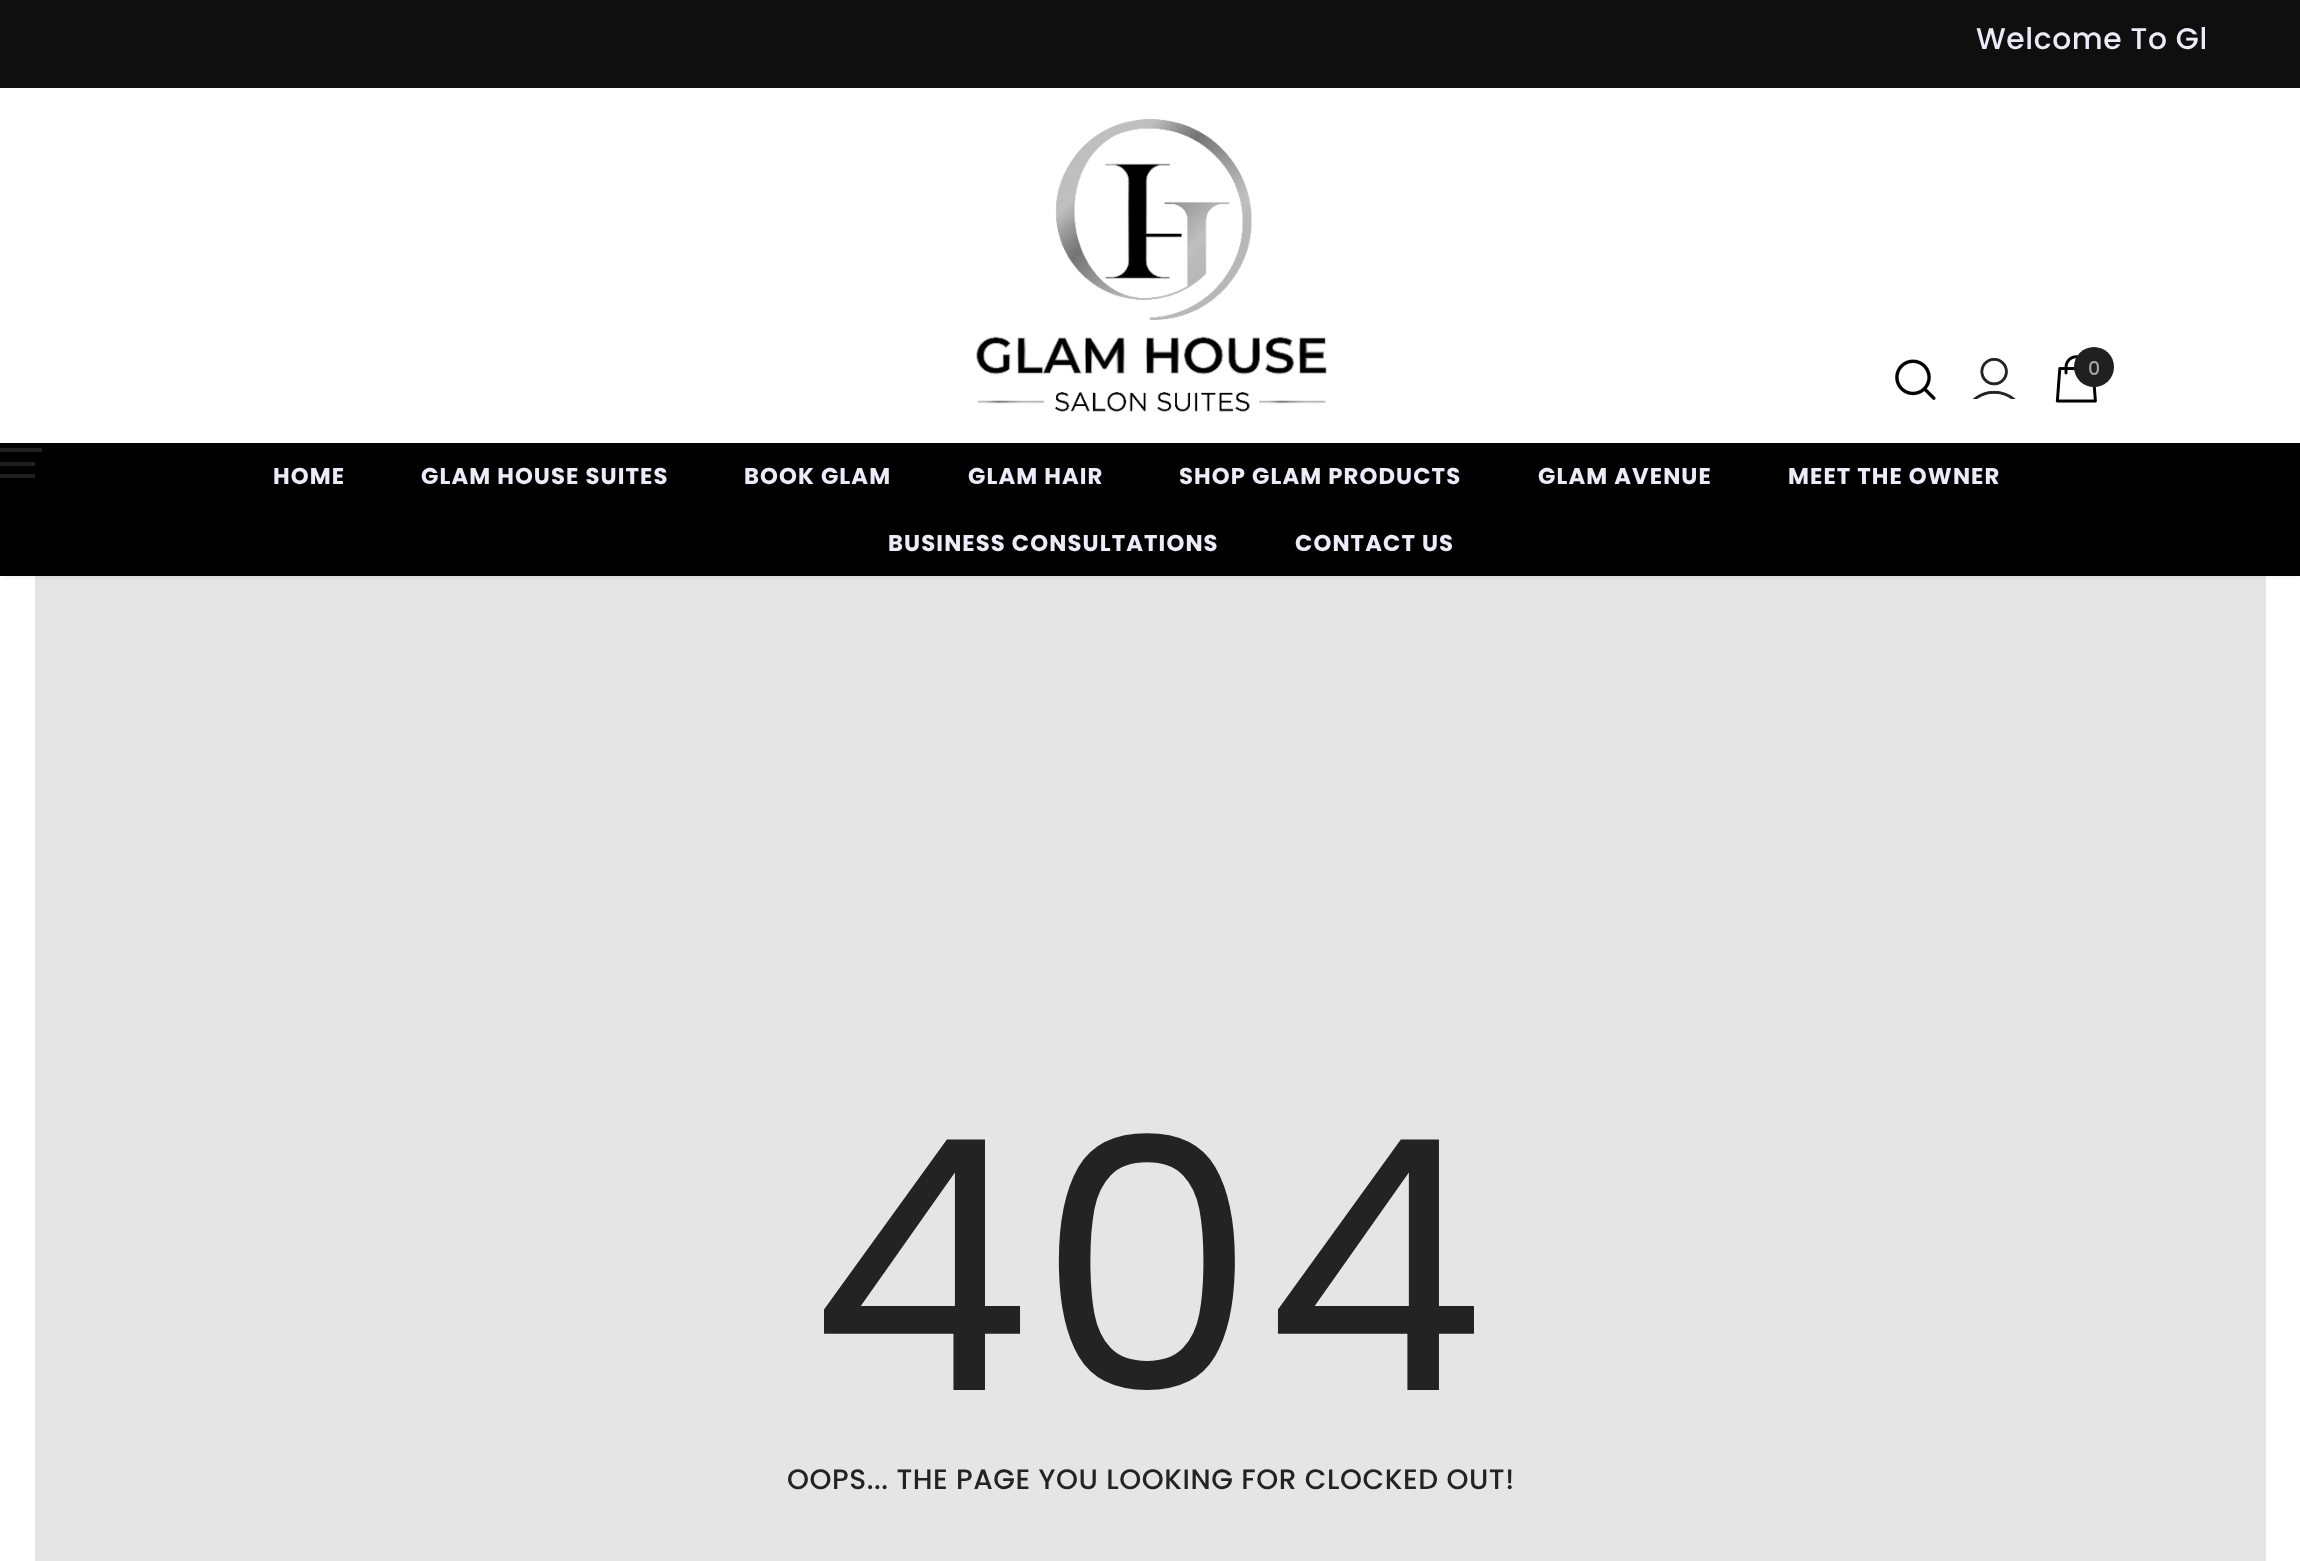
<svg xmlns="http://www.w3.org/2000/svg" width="2300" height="1561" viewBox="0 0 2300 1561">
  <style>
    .t1 { font: 500 29.75px Poppins; letter-spacing: 0.6px; fill: #edebf7; }
    .t2 { font: 500 19px Poppins; fill: #a7a7a7; }
    .t3 { font: bold 22.75px Poppins; letter-spacing: 1.1px; fill: #edebf7; }
    .t4 { font: 350px Poppins; letter-spacing: 7px; fill: #232323; }
    .t5 { font: 500 28px Poppins; letter-spacing: 0.55px; fill: #232323; }
  </style>
  <defs>
    <clipPath id="clip1"><rect x="96" y="18" width="2109" height="42"/></clipPath>
  </defs>
  <rect width="100%" height="100%" fill="#fff"/>
  <rect x="0" y="0" width="2300" height="88" fill="#0f0f0f"/>
  <g clip-path="url(#clip1)">
    <text x="1976" y="49" class="t1">Welcome To Gl</text>
  </g>
  <image x="976" y="119" width="351" height="293" href="images/1.png"/>
  <image x="1895" y="359" width="41" height="41" href="images/2.png"/>
  <image x="1972" y="358" width="44" height="41" href="images/3.png"/>
  <image x="2055" y="355" width="42" height="48" href="images/4.png"/>
  <circle cx="2094" cy="367" r="20" fill="#202020"/>
  <text x="2088" y="375" class="t2">0</text>
  <rect x="35" y="576" width="2231" height="985" fill="#e5e5e5"/>
  <rect x="5" y="453" width="2291" height="123" fill="#0000001a" filter="blur(2.5px)"/>
  <rect x="0" y="443" width="2300" height="133" fill="#000"/>
  <rect x="0" y="448" width="42" height="4" fill="#202020"/>
  <rect x="0" y="462" width="35" height="4" fill="#202020"/>
  <rect x="0" y="474" width="35" height="4" fill="#202020"/>
  <text x="273" y="484" class="t3">HOME</text>
  <text x="421" y="484" class="t3">GLAM HOUSE SUITES</text>
  <text x="744" y="484" class="t3">BOOK GLAM</text>
  <text x="968" y="484" class="t3">GLAM HAIR</text>
  <text x="1179" y="484" class="t3">SHOP GLAM PRODUCTS</text>
  <text x="1538" y="484" class="t3">GLAM AVENUE</text>
  <text x="1788" y="484" class="t3">MEET THE OWNER</text>
  <text x="888" y="551" class="t3">BUSINESS CONSULTATIONS</text>
  <text x="1295" y="551" class="t3">CONTACT US</text>
  <text x="810" y="1390" class="t4">404</text>
  <text x="787" y="1489" class="t5">OOPS... THE PAGE YOU LOOKING FOR CLOCKED OUT!</text>
</svg>
